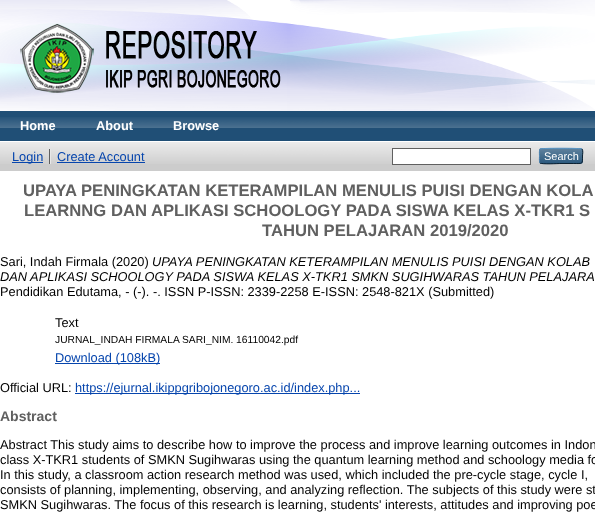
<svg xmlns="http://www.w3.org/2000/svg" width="595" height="521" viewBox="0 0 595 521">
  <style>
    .t1 { font: bold 12.8px Liberation Sans; fill: #fff; }
    .t2 { font: 12.8px Liberation Sans; fill: #0645ad; }
    .t3 { font: 11px Liberation Sans; fill: #fff; }
    .t4 { font: bold 16.65px Liberation Sans; fill: #606060; }
    .t5 { font: 12.8px Liberation Sans; fill: #000; }
    .t6 { font: italic 12.8px Liberation Sans; fill: #000; }
    .t7 { font: 10.25px Liberation Sans; fill: #000; }
    .t8 { font: bold 14px Liberation Sans; fill: #606060; }
  </style>
  <rect width="100%" height="100%" fill="#fff"/>
  <image x="0" y="0" width="595" height="111" href="images/1.png"/>
  <image x="20" y="24" width="261" height="69" href="images/2.png"/>
  <rect x="0" y="111" width="595" height="30" fill="#204f76"/>
  <image x="0" y="117" width="595" height="11" href="images/3.png"/>
  <text x="20" y="130" class="t1">Home</text>
  <text x="96" y="130" class="t1">About</text>
  <text x="173" y="130" class="t1">Browse</text>
  <rect x="0" y="142" width="595" height="29" fill="#ccc"/>
  <image x="0" y="142" width="595" height="22" href="images/4.png"/>
  <rect x="12" y="162" width="31" height="1" fill="#0645ad"/>
  <text x="12" y="161" class="t2">Login</text>
  <rect x="49" y="149" width="1" height="15" fill="#606060"/>
  <text x="57" y="161" class="t2">Create Account</text>
  <rect x="50" y="149" width="1" height="15" fill="#e8e8e8"/>
  <rect x="57" y="162" width="88" height="1" fill="#0645ad"/>
  <rect x="392.5" y="148.5" width="138" height="16" fill="#fff" stroke="#606060"/>
  <rect x="539" y="148" width="44" height="16" rx="3" fill="#1f4f76"/>
  <image x="539" y="148" width="44" height="16" href="images/5.png"/>
  <path d="M540 149C541.5 148 580.5 148 582 149" fill="none" stroke="#5b97c7"/>
  <path d="M582 149C583.5 151 582.5 154 582.5 156C582.5 164.5 583 163.5 573.5 163.5H561C558 163.5 542 164.5 540 163" fill="none" stroke="#0d2131"/>
  <path d="M540 163C539 161.5 539.5 157.5 539.5 156C539.5 154.5 539 150.5 540 149" fill="none" stroke="#5287b3"/>
  <text x="544" y="160" class="t3">Search</text>
  <text x="23" y="196" class="t4">UPAYA PENINGKATAN KETERAMPILAN MENULIS PUISI DENGAN KOLA</text>
  <text x="24" y="216" class="t4">LEARNNG DAN APLIKASI SCHOOLOGY PADA SISWA KELAS X-TKR1 S</text>
  <text x="262" y="236" class="t4">TAHUN PELAJARAN 2019/2020</text>
  <text x="0" y="266" class="t5">Sari, Indah Firmala (2020)</text>
  <text x="152" y="266" class="t6">UPAYA PENINGKATAN KETERAMPILAN MENULIS PUISI DENGAN KOLAB</text>
  <text x="0" y="281" class="t6">DAN APLIKASI SCHOOLOGY PADA SISWA KELAS X-TKR1 SMKN SUGIHWARAS TAHUN PELAJARA</text>
  <text x="0" y="296" class="t5">Pendidikan Edutama, - (-). -. ISSN P-ISSN: 2339-2258 E-ISSN: 2548-821X (Submitted)</text>
  <text x="55" y="327" class="t5">Text</text>
  <text x="55" y="343" class="t7">JURNAL_INDAH FIRMALA SARI_NIM. 16110042.pdf</text>
  <rect x="55" y="363" width="105" height="1" fill="#0645ad"/>
  <text x="55" y="362" class="t2">Download (108kB)</text>
  <text x="0" y="392" class="t5">Official URL:</text>
  <rect x="75" y="393" width="285" height="1" fill="#0645ad"/>
  <text x="75" y="392" class="t2">https://ejurnal.ikippgribojonegoro.ac.id/index.php...</text>
  <text x="0" y="421" class="t8">Abstract</text>
  <text x="0" y="449" class="t5">Abstract This study aims to describe how to improve the process and improve learning outcomes in Indon</text>
  <text x="0" y="464" class="t5">class X-TKR1 students of SMKN Sugihwaras using the quantum learning method and schoology media fo</text>
  <text x="0" y="479" class="t5">In this study, a classroom action research method was used, which included the pre-cycle stage, cycle I,</text>
  <text x="0" y="494" class="t5">consists of planning, implementing, observing, and analyzing reflection. The subjects of this study were st</text>
  <text x="0" y="509" class="t5">SMKN Sugihwaras. The focus of this research is learning, students' interests, attitudes and improving poe</text>
</svg>
